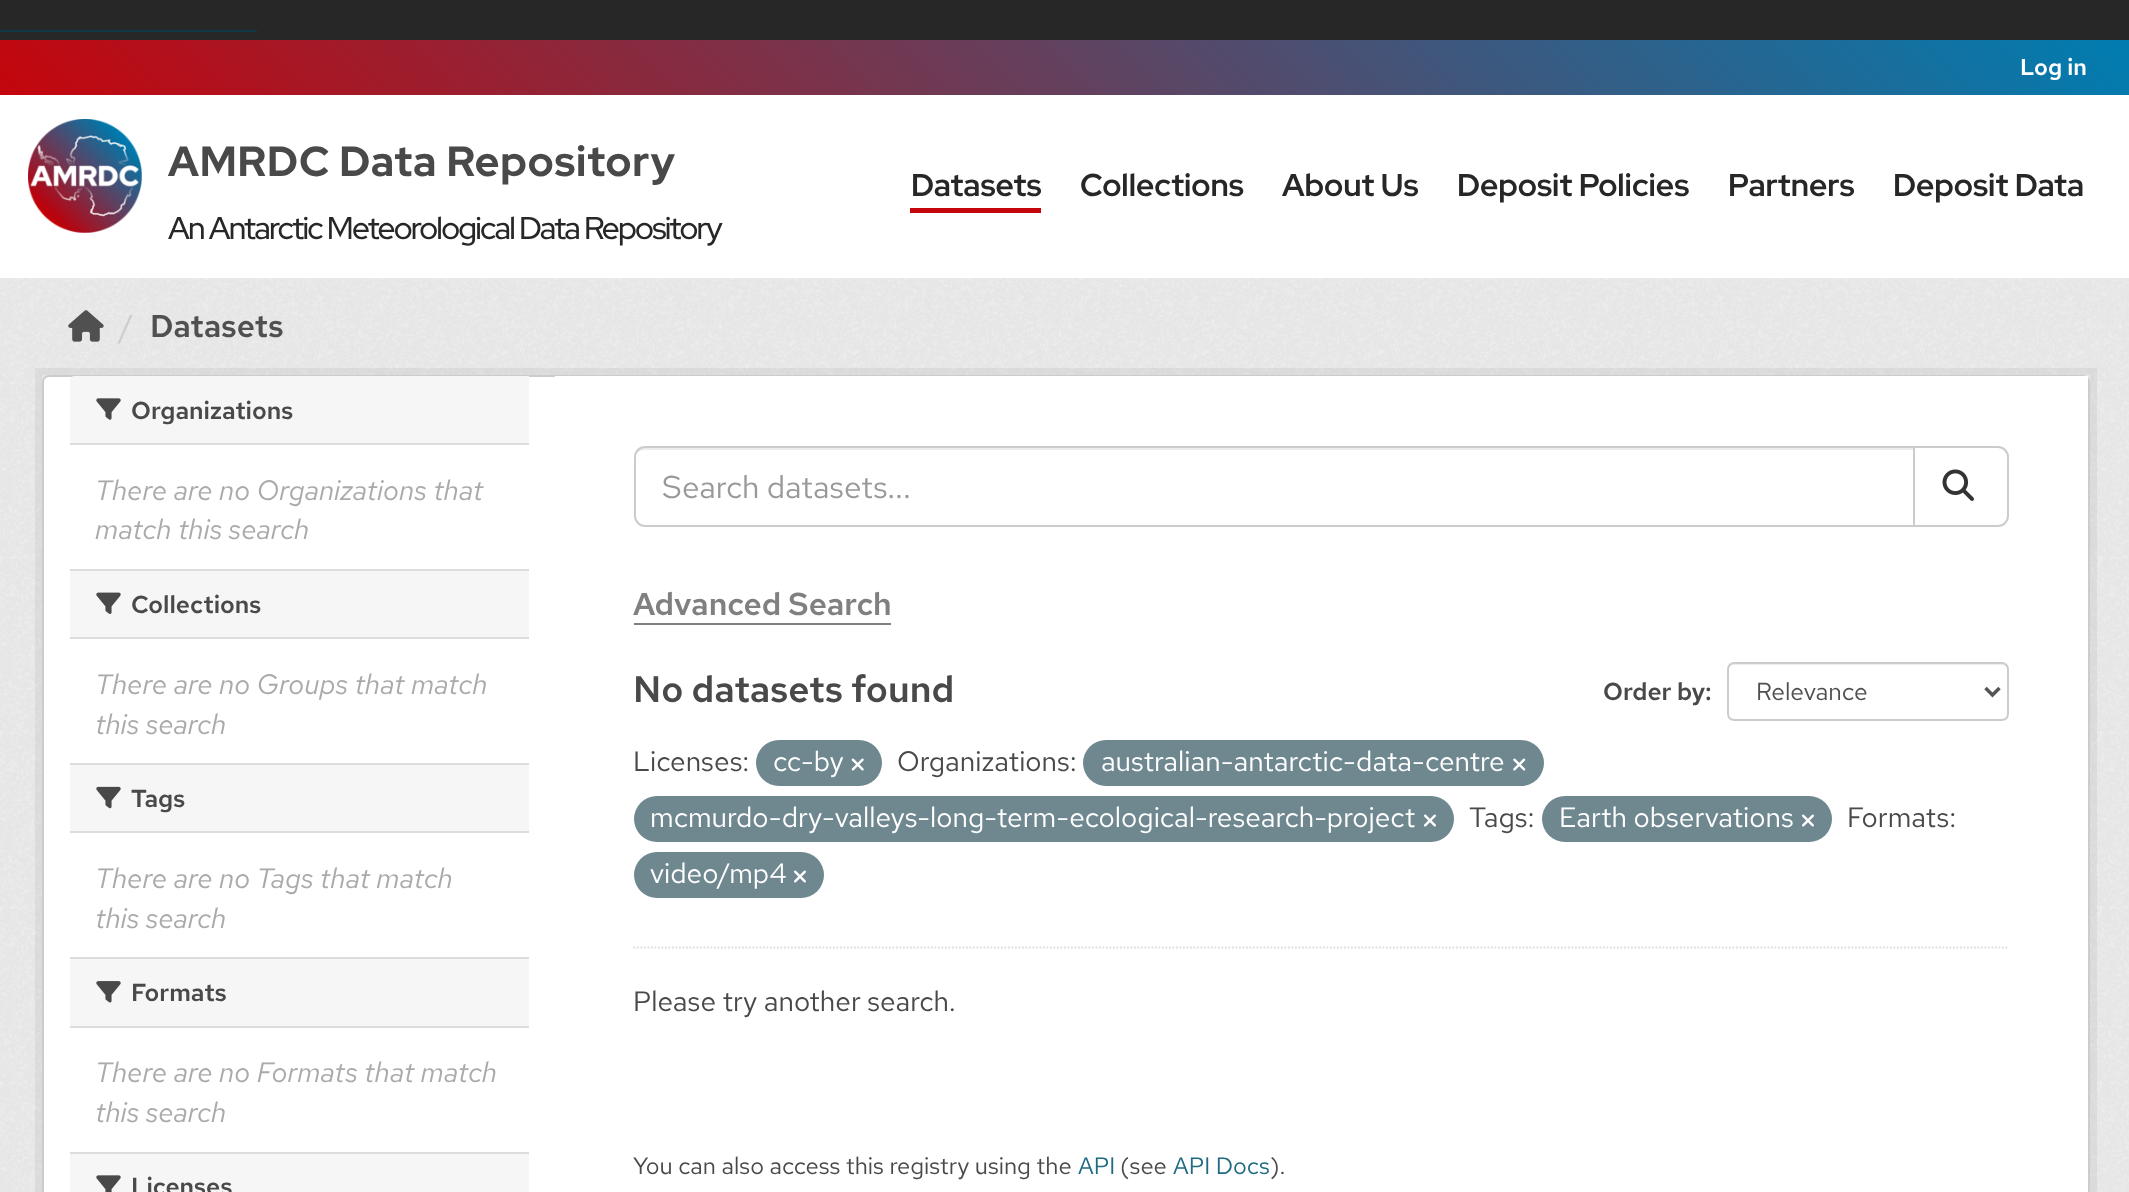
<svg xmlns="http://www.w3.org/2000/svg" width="2129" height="1192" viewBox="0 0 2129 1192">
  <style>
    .t1 { font: 600 23px Red Hat Text; fill: #fff; }
    .t2 { font: bold 42px Red Hat Display; letter-spacing: 0.9px; fill: #494949; }
    .t3 { font: 31.5px Red Hat Display; letter-spacing: -1.75px; fill: #282728; }
    .t4 { font: 600 31.5px Red Hat Display; fill: #282728; }
    .t5 { font: 31.5px Red Hat Text; fill: #ccc; }
    .t6 { font: 600 31.5px Red Hat Text; fill: #505050; }
    .t7 { font: 600 24.5px Red Hat Text; fill: #494949; }
    .t8 { font: italic 28px Red Hat Text; fill: #aaa; }
    .t9 { font: 31.5px Red Hat Text; fill: #999; }
    .t10 { font: 600 31.5px Red Hat Text; fill: #808080; }
    .t11 { font: 600 36.75px Red Hat Text; fill: #494949; }
    .t12 { font: 24.5px Red Hat Text; fill: #505050; }
    .t13 { font: 28px Red Hat Text; fill: #494949; }
    .t14 { font: 28px Red Hat Text; fill: #fff; }
    .t15 { font: 23.75px Red Hat Text; fill: #494949; }
    .t16 { font: 23.75px Red Hat Text; fill: #206b82; }
  </style>
  <defs>
    <linearGradient id="g1" gradientUnits="userSpaceOnUse" x1="519" y1="613" x2="1611" y2="-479"><stop offset="0" stop-color="#c5050c"/><stop offset="1" stop-color="#007db1"/></linearGradient>
  </defs>
  <rect width="100%" height="100%" fill="#282728"/>
  <rect x="0" y="30" width="257" height="2" fill="#113845"/>
  <rect x="0" y="40" width="2129" height="55" fill="url(#g1)"/>
  <text x="2020" y="75" class="t1">Log in</text>
  <rect x="0" y="95" width="2129" height="183" fill="#fff"/>
  <image x="28" y="119" width="114" height="114" href="images/1.png"/>
  <text x="168" y="176" class="t2">AMRDC Data Repository</text>
  <text x="168" y="239" class="t3">An Antarctic Meteorological Data Repository</text>
  <rect x="910" y="208" width="131" height="5" fill="#c5050c"/>
  <text x="911" y="196" class="t4">Datasets</text>
  <text x="1080" y="196" class="t4">Collections</text>
  <text x="1282" y="196" class="t4">About Us</text>
  <text x="1457" y="196" class="t4">Deposit Policies</text>
  <text x="1728" y="196" class="t4">Partners</text>
  <text x="1893" y="196" class="t4">Deposit Data</text>
  <rect x="0" y="278" width="2129" height="914" fill="#eee"/>
  <image x="0" y="278" width="2129" height="914" href="images/2.png"/>
  <image x="68" y="310" width="36" height="32" href="images/3.png"/>
  <text x="119" y="337" class="t5">/</text>
  <text x="150" y="337" class="t6">Datasets</text>
  <rect x="38.5" y="371.5" width="2055" height="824" fill="none" stroke="#0000000d" stroke-width="7"/>
  <rect x="43" y="376" width="2046" height="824" rx="6" fill="#fff" stroke="#ccc" stroke-width="2"/>
  <path d="M75 376H529V445H70V381C70 378 72 376 75 376Z" fill="#f6f6f6"/>
  <rect x="70" y="443" width="459" height="2" fill="#ddd"/>
  <image x="96" y="398" width="25" height="22" href="images/4.png"/>
  <text x="131" y="419" class="t7">Organizations</text>
  <text x="95" y="500" class="t8">There are no Organizations that</text>
  <text x="95" y="539" class="t8">match this search</text>
  <rect x="70" y="571" width="459" height="66" fill="#f6f6f6"/>
  <rect x="70" y="569" width="459" height="2" fill="#ddd"/>
  <rect x="70" y="637" width="459" height="2" fill="#ddd"/>
  <image x="96" y="592" width="25" height="22" href="images/5.png"/>
  <text x="131" y="613" class="t7">Collections</text>
  <text x="95" y="694" class="t8">There are no Groups that match</text>
  <text x="95" y="734" class="t8">this search</text>
  <rect x="70" y="765" width="459" height="66" fill="#f6f6f6"/>
  <rect x="70" y="763" width="459" height="2" fill="#ddd"/>
  <rect x="70" y="831" width="459" height="2" fill="#ddd"/>
  <image x="96" y="786" width="25" height="23" href="images/6.png"/>
  <text x="131" y="807" class="t7">Tags</text>
  <text x="95" y="888" class="t8">There are no Tags that match</text>
  <text x="95" y="928" class="t8">this search</text>
  <rect x="70" y="959" width="459" height="67" fill="#f6f6f6"/>
  <rect x="70" y="957" width="459" height="2" fill="#ddd"/>
  <rect x="70" y="1026" width="459" height="2" fill="#ddd"/>
  <image x="96" y="981" width="25" height="22" href="images/7.png"/>
  <text x="131" y="1001" class="t7">Formats</text>
  <text x="95" y="1082" class="t8">There are no Formats that match</text>
  <text x="95" y="1122" class="t8">this search</text>
  <rect x="70" y="1154" width="459" height="38" fill="#f6f6f6"/>
  <rect x="70" y="1152" width="459" height="2" fill="#ddd"/>
  <image x="96" y="1175" width="25" height="17" href="images/8.png"/>
  <text x="131" y="1195" class="t7">Licenses</text>
  <rect x="555" y="376" width="1533" height="5" fill="#fff"/>
  <path d="M633.5 947.5H2009" fill="none" stroke="#ddd" stroke-width="1.8" stroke-dasharray="1.75 1.75"/>
  <path d="M644 450H1913V448H644C639 448 635 452 635 457V458C635 454 639 450 644 450Z" fill="#ececec"/>
  <path d="M645 447H1914V526H645C639.5 526 635 521.5 635 516V457C635 451.5 639.5 447 645 447Z" fill="none" stroke="#ccc" stroke-width="2"/>
  <text x="662" y="498" class="t9">Search datasets...</text>
  <path d="M1914 447H1998C2003.5 447 2008 451.5 2008 457V516C2008 521.5 2003.5 526 1998 526H1914Z" fill="#fff" stroke="#ccc" stroke-width="2"/>
  <image x="1942" y="469" width="32" height="32" href="images/9.png"/>
  <text x="633" y="615" class="t10">Advanced Search</text>
  <rect x="634" y="623" width="257" height="2" fill="#808080"/>
  <text x="633" y="702" class="t11">No datasets found</text>
  <text x="1603" y="700" class="t7">Order by:</text>
  <path d="M1734 665H2002C2005 665 2007 667 2007 670V668C2007 665 2005 663 2002 663H1734C1731 663 1729 665 1729 668V670C1729 667 1731 665 1734 665Z" fill="#ececec"/>
  <rect x="1728" y="663" width="280" height="57" rx="6" fill="none" stroke="#ccc" stroke-width="2"/>
  <path d="M1985.5 688L1992.5 695L1999.5 688" fill="none" stroke="#555" stroke-width="3.5"/>
  <text x="1756" y="700" class="t12">Relevance</text>
  <text x="633" y="771" class="t13">Licenses:</text>
  <rect x="756" y="740" width="126" height="46" rx="23" fill="#6f8890"/>
  <text x="773" y="771" class="t14">cc-by</text>
  <image x="851" y="758" width="13" height="13" href="images/10.png"/>
  <text x="897" y="771" class="t13">Organizations:</text>
  <rect x="1083" y="740" width="461" height="46" rx="23" fill="#6f8890"/>
  <text x="1101" y="771" class="t14">australian-antarctic-data-centre</text>
  <image x="1513" y="758" width="13" height="13" href="images/11.png"/>
  <rect x="634" y="796" width="820" height="46" rx="23" fill="#6f8890"/>
  <text x="650" y="827" class="t14">mcmurdo-dry-valleys-long-term-ecological-research-project</text>
  <image x="1424" y="814" width="12" height="13" href="images/12.png"/>
  <text x="1469" y="827" class="t13">Tags:</text>
  <rect x="1542" y="796" width="290" height="46" rx="23" fill="#6f8890"/>
  <text x="1559" y="827" class="t14">Earth observations</text>
  <image x="1802" y="814" width="12" height="13" href="images/12.png"/>
  <text x="1847" y="827" class="t13">Formats:</text>
  <rect x="634" y="852" width="190" height="46" rx="23" fill="#6f8890"/>
  <text x="650" y="883" class="t14">video/mp4</text>
  <image x="794" y="870" width="12" height="13" href="images/12.png"/>
  <text x="633" y="1011" class="t13">Please try another search.</text>
  <text x="633" y="1174" class="t15">You can also access this registry using the</text>
  <text x="1078" y="1174" class="t16">API</text>
  <text x="1120" y="1174" class="t15">(see</text>
  <text x="1173" y="1174" class="t16">API Docs</text>
  <text x="1270" y="1174" class="t15">).</text>
</svg>
